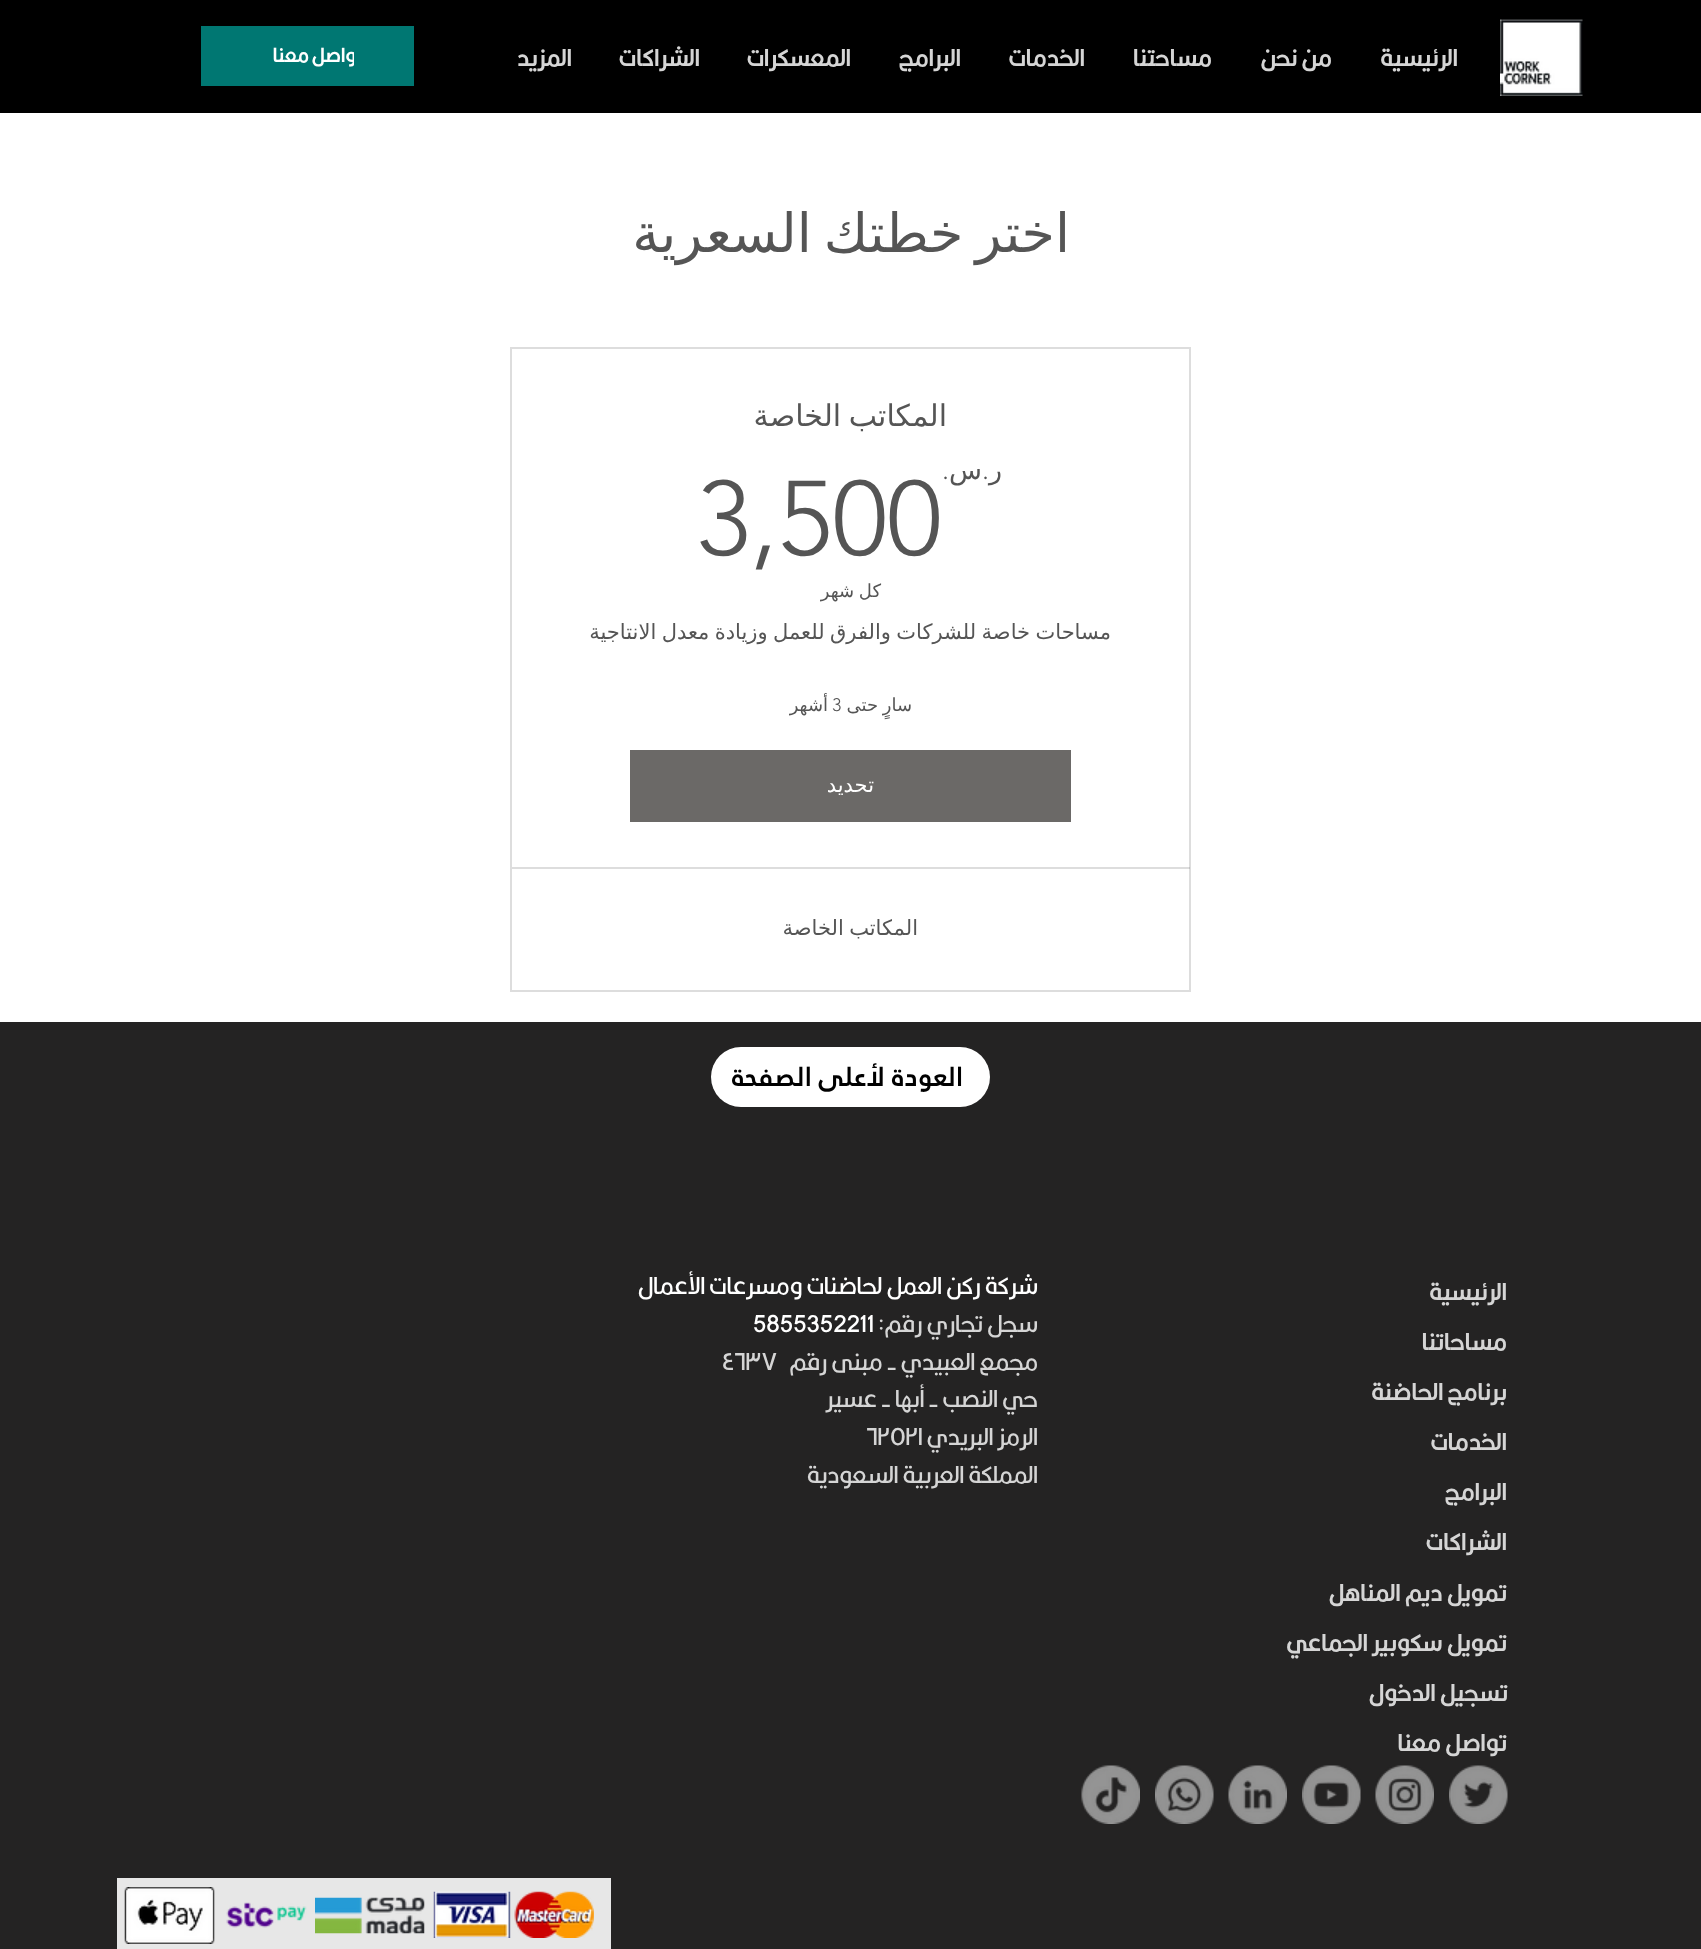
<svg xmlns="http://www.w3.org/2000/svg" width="1701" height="1949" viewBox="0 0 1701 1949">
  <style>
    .t1 { font: 500 27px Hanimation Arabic; direction: rtl; fill: #d5d5d5; }
    .t2 { font: 500 22.5px Hanimation Arabic; letter-spacing: 1.1px; direction: rtl; fill: #fff; }
    .t3 { font: 54px DejaVu Sans; direction: rtl; fill: #555; }
    .t4 { font: 30px DejaVu Sans; direction: rtl; fill: #555; }
    .t5 { font: 27px DejaVu Sans; direction: rtl; fill: #555; }
    .t6 { font: 300 27px 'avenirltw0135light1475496'; direction: rtl; fill: #555; }
    .t7 { font: 300 105px 'avenirltw0135light1475496'; fill: #555; }
    .t8 { font: 18px DejaVu Sans; direction: rtl; fill: #555; }
    .t9 { font: 21px DejaVu Sans; direction: rtl; fill: #555; }
    .t10 { font: 300 18px 'avenirltw0135light1475496'; fill: #555; }
    .t11 { font: 21px DejaVu Sans; direction: rtl; fill: #fff; }
    .t12 { font: bold 27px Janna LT; direction: rtl; fill: #000; }
    .t13 { font: 27px Hanimation Arabic; direction: rtl; fill: #fff; }
    .t14 { font: 27px Hanimation Arabic; direction: rtl; fill: #d5d5d5; }
    .t15 { font: 27px Hanimation Arabic; fill: #fff; }
    .t16 { font: 27px Hanimation Arabic; fill: #d5d5d5; }
  </style>
  <defs>
    <clipPath id="clip1"><rect x="263" y="33" width="91" height="47"/></clipPath>
  </defs>
  <rect width="100%" height="100%" fill="#fff"/>
  <rect x="0" y="0" width="1701" height="113" fill="#000"/>
  <image x="1500" y="19" width="83" height="77" href="images/1.png"/>
  <text x="1458" y="66" class="t1">الرئيسية</text>
  <text x="1332" y="66" class="t1">من نحن</text>
  <text x="1212" y="66" class="t1">مساحتنا</text>
  <text x="1085" y="66" class="t1">الخدمات</text>
  <text x="961" y="66" class="t1">البرامج</text>
  <text x="851" y="66" class="t1">المعسكرات</text>
  <text x="700" y="66" class="t1">الشراكات</text>
  <text x="572" y="66" class="t1">المزيد</text>
  <rect x="201" y="26" width="213" height="60" fill="#007772"/>
  <g clip-path="url(#clip1)">
    <text x="363" y="62" word-spacing="-1" class="t2">تواصل معنا</text>
  </g>
  <text x="1070" y="252" word-spacing="-5" class="t3">اختر خطتك السعرية</text>
  <rect x="511" y="348" width="679" height="643" fill="none" stroke="#ddd" stroke-width="2"/>
  <text x="947" y="426" word-spacing="-2" class="t4">المكاتب الخاصة</text>
  <text x="1002" y="479" class="t5">ر</text>
  <text x="989" y="479" class="t6">.</text>
  <text x="982" y="479" class="t5">س</text>
  <text x="949" y="479" class="t6">.</text>
  <text x="696" y="555" class="t7">3,500</text>
  <text x="881" y="597" word-spacing="-1" class="t8">كل شهر</text>
  <text x="1111" y="639" word-spacing="-1.25" class="t9">مساحات خاصة للشركات والفرق للعمل وزيادة معدل الانتاجية</text>
  <text x="912" y="711" word-spacing="-1" class="t8">سارٍ حتى</text>
  <text x="832" y="711" class="t10">3</text>
  <text x="828" y="711" class="t8">أشهر</text>
  <rect x="630" y="750" width="441" height="72" fill="#6b6967"/>
  <text x="874" y="792" class="t11">تحديد</text>
  <rect x="512" y="867" width="678" height="2" fill="#55555533"/>
  <text x="918" y="935" word-spacing="-1.25" class="t9">المكاتب الخاصة</text>
  <rect x="0" y="1022" width="1701" height="927" fill="#242323"/>
  <rect x="711" y="1047" width="279" height="60" rx="30" fill="#fff"/>
  <text x="963" y="1086" class="t12">العودة لأعلى الصفحة</text>
  <text x="1507" y="1300" class="t1">الرئيسية</text>
  <text x="1507" y="1350" class="t1">مساحاتنا</text>
  <text x="1507" y="1400" class="t1">برنامج الحاضنة</text>
  <text x="1507" y="1450" class="t1">الخدمات</text>
  <text x="1507" y="1500" class="t1">البرامج</text>
  <text x="1507" y="1550" class="t1">الشراكات</text>
  <text x="1507" y="1601" class="t1">تمويل ديم المناهل</text>
  <text x="1507" y="1651" class="t1">تمويل سكوبير الجماعي</text>
  <text x="1508" y="1701" class="t1">تسجيل الدخول</text>
  <text x="1507" y="1751" class="t1">تواصل معنا</text>
  <text x="1038" y="1294" class="t13">شركة ركن العمل لحاضنات ومسرعات الأعمال</text>
  <text x="1038" y="1332" class="t14">سجل تجاري رقم:</text>
  <text x="753" y="1332" class="t15">5855352211</text>
  <text x="1038" y="1370" class="t14">مجمع العبيدي - مبنى رقم</text>
  <text x="722" y="1370" class="t16">٤٦٣٧</text>
  <text x="1038" y="1407" class="t14">حي النصب - أبها - عسير</text>
  <text x="1038" y="1445" class="t14">الرمز البريدي</text>
  <text x="866" y="1445" class="t16">٦٢٥٢١</text>
  <text x="1038" y="1483" class="t14">المملكة العربية السعودية</text>
  <image x="1449" y="1765" width="59" height="59" href="images/2.png"/>
  <image x="1375" y="1765" width="59" height="59" href="images/3.png"/>
  <image x="1302" y="1765" width="59" height="59" href="images/4.png"/>
  <image x="1228" y="1765" width="59" height="59" href="images/5.png"/>
  <image x="1155" y="1765" width="59" height="59" href="images/6.png"/>
  <image x="1081" y="1765" width="59" height="59" href="images/7.png"/>
  <rect x="117" y="1878" width="494" height="71" fill="#e7e7e7"/>
  <image x="433" y="1891" width="161" height="47" href="images/8.png"/>
  <image x="315" y="1897" width="110" height="37" href="images/9.png"/>
  <image x="226" y="1902" width="81" height="26" href="images/10.png"/>
  <image x="124" y="1887" width="91" height="57" href="images/11.png"/>
</svg>
